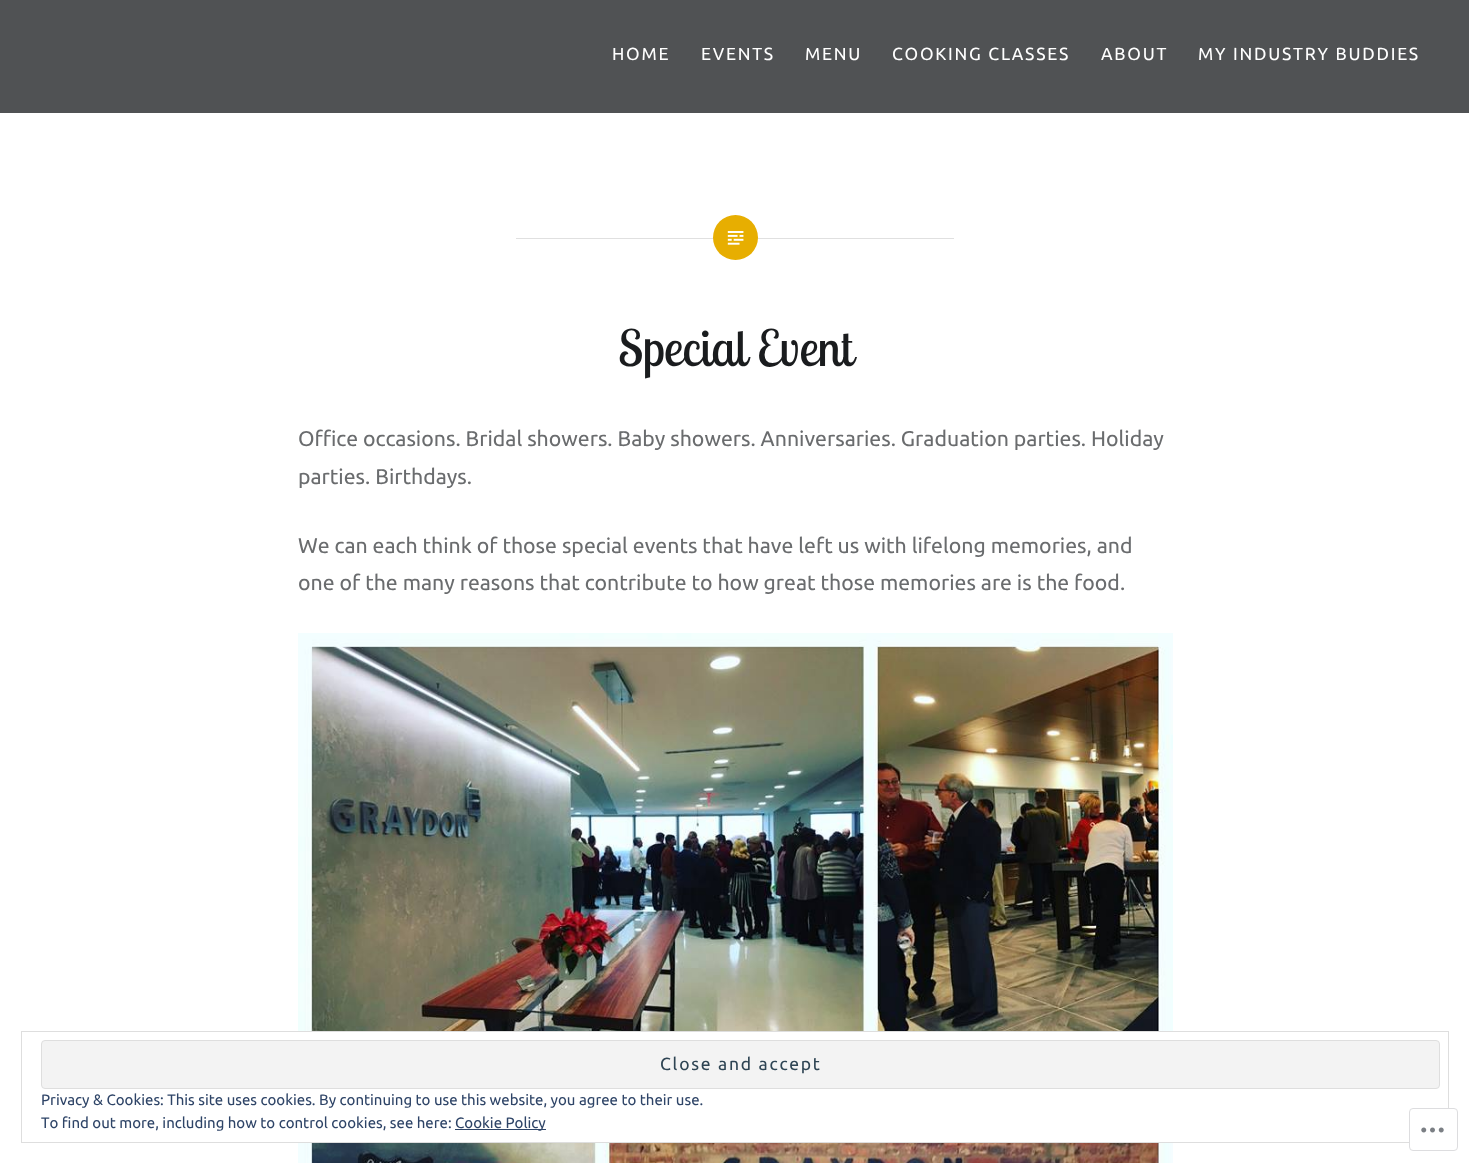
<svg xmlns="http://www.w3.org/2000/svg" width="1469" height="1163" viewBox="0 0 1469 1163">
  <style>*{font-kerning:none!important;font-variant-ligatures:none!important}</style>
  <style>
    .t1 { font: 17.5px Ubuntu; letter-spacing: 1.75px; fill: #fff; }
    .t2 { font: 50px Lobster Two; fill: #1a1c1e; }
    .t3 { font: 21.25px Ubuntu; fill: #6a6c6e; }
    .t4 { font: 17.5px Ubuntu; letter-spacing: 1.75px; fill: #2e4453; }
    .t5 { font: 15px Ubuntu; fill: #2e4467; }
  </style>
  <rect width="100%" height="100%" fill="#fff"/>
  <rect x="0" y="0" width="1469" height="113" fill="#505254"/>
  <text x="612" y="60" class="t1">HOME</text>
  <text x="701" y="60" class="t1">EVENTS</text>
  <text x="805" y="60" class="t1">MENU</text>
  <text x="892" y="60" class="t1">COOKING CLASSES</text>
  <text x="1101" y="60" class="t1">ABOUT</text>
  <text x="1198" y="60" class="t1">MY INDUSTRY BUDDIES</text>
  <rect x="516" y="238" width="438" height="1" fill="#e0e0e0"/>
  <circle cx="735.5" cy="237.5" r="22.5" fill="#e7ae01"/>
  <image x="727" y="231" width="17" height="14" href="images/1.png"/>
  <text x="618" y="366" class="t2">Special Event</text>
  <text x="298" y="446" class="t3">Office occasions. Bridal showers. Baby showers. Anniversaries. Graduation parties. Holiday</text>
  <text x="298" y="484" class="t3">parties. Birthdays.</text>
  <text x="298" y="553" class="t3">We can each think of those special events that have left us with lifelong memories, and</text>
  <text x="298" y="590" class="t3">one of the many reasons that contribute to how great those memories are is the food.</text>
  <image x="298" y="633" width="875" height="530" href="images/2.png"/>
  <rect x="298" y="1032" width="875" height="110" fill="#fff"/>
  <rect x="21.5" y="1031.5" width="1427" height="111" fill="none" stroke="#dedede"/>
  <rect x="41.5" y="1040.5" width="1398" height="48" rx="3.5" fill="#f3f3f3" stroke="#dedede"/>
  <text x="660" y="1070" class="t4">Close and accept</text>
  <text x="41" y="1105" class="t5">Privacy &amp; Cookies: This site uses cookies. By continuing to use this website, you agree to their use.</text>
  <text x="41" y="1128" class="t5">To find out more, including how to control cookies, see here:</text>
  <rect x="455" y="1129" width="91" height="1" fill="#2e4467"/>
  <text x="455" y="1128" class="t5">Cookie Policy</text>
  <rect x="1409.5" y="1108.5" width="48" height="42" rx="3.5" fill="#fffffffa" stroke="#dddddf"/>
  <image x="1421" y="1127" width="23" height="6" href="images/3.png"/>
</svg>
